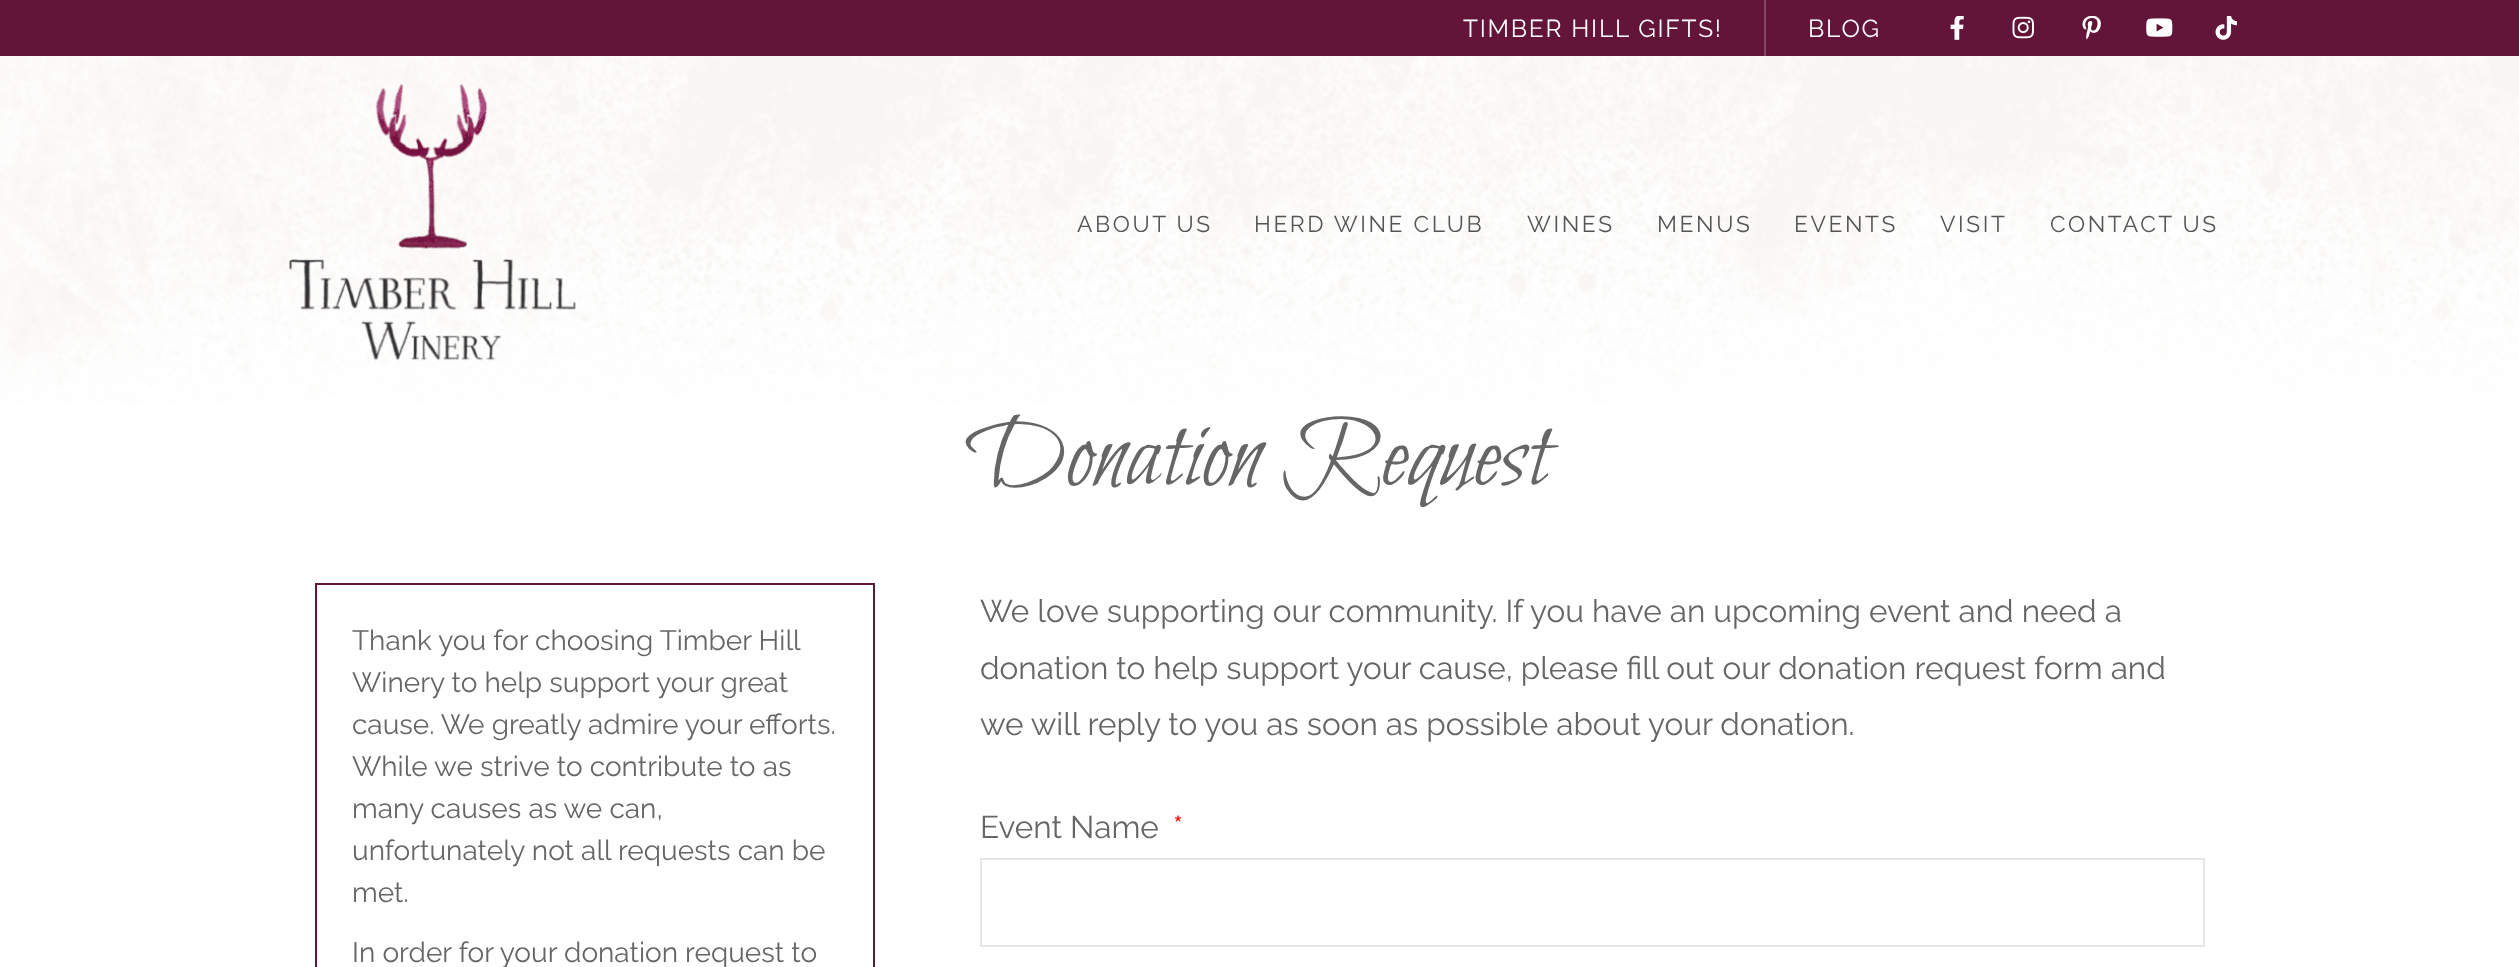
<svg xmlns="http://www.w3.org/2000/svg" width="2519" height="967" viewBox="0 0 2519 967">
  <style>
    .t1 { font: 24.5px Raleway; letter-spacing: 1.75px; fill: #fff; }
    .t2 { font: 22.75px Raleway; letter-spacing: 2.6px; fill: #555; }
    .t3 { font: 103.25px Bilbo Swash Caps; fill: #666; }
    .t4 { font: 28px Raleway; fill: #666; }
    .t5 { font: 31.5px Raleway; fill: #666; }
    .t6 { font: 31.5px Raleway; fill: #f00; }
  </style>
  <rect width="100%" height="100%" fill="#fff"/>
  <image x="0" y="56" width="2519" height="349" href="images/1.png"/>
  <rect x="0" y="0" width="2519" height="56" fill="#631439"/>
  <text x="1463" y="37" class="t1">TIMBER HILL GIFTS!</text>
  <rect x="1764" y="0" width="2" height="56" fill="#824662"/>
  <text x="1808" y="37" class="t1">BLOG</text>
  <image x="1950" y="16" width="14" height="24" href="images/2.png"/>
  <image x="2012" y="16" width="22" height="23" href="images/3.png"/>
  <image x="2082" y="16" width="19" height="24" href="images/4.png"/>
  <image x="2146" y="18" width="27" height="19" href="images/5.png"/>
  <image x="2215" y="16" width="22" height="24" href="images/6.png"/>
  <image x="289" y="83" width="287" height="278" href="images/7.png"/>
  <text x="1077" y="232" class="t2">ABOUT US</text>
  <text x="1254" y="232" class="t2">HERD WINE CLUB</text>
  <text x="1527" y="232" class="t2">WINES</text>
  <text x="1657" y="232" class="t2">MENUS</text>
  <text x="1794" y="232" class="t2">EVENTS</text>
  <text x="1940" y="232" class="t2">VISIT</text>
  <text x="2050" y="232" class="t2">CONTACT US</text>
  <text x="971" y="484" class="t3">Donation Request</text>
  <rect x="316" y="584" width="558" height="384" fill="none" stroke="#631439" stroke-width="2"/>
  <text x="352" y="650" class="t4">Thank you for choosing Timber Hill</text>
  <text x="352" y="692" class="t4">Winery to help support your great</text>
  <text x="352" y="734" class="t4">cause. We greatly admire your efforts.</text>
  <text x="352" y="776" class="t4">While we strive to contribute to as</text>
  <text x="352" y="818" class="t4">many causes as we can,</text>
  <text x="352" y="860" class="t4">unfortunately not all requests can be</text>
  <text x="352" y="902" class="t4">met.</text>
  <text x="352" y="962" class="t4">In order for your donation request to</text>
  <text x="980" y="622" class="t5">We love supporting our community. If you have an upcoming event and need a</text>
  <text x="980" y="679" class="t5">donation to help support your cause, please fill out our donation request form and</text>
  <text x="980" y="735" class="t5">we will reply to you as soon as possible about your donation.</text>
  <text x="980" y="838" class="t5">Event Name</text>
  <text x="1173" y="838" class="t6">*</text>
  <rect x="981" y="859" width="1223" height="87" fill="none" stroke="#e6e6e6" stroke-width="2"/>
</svg>
